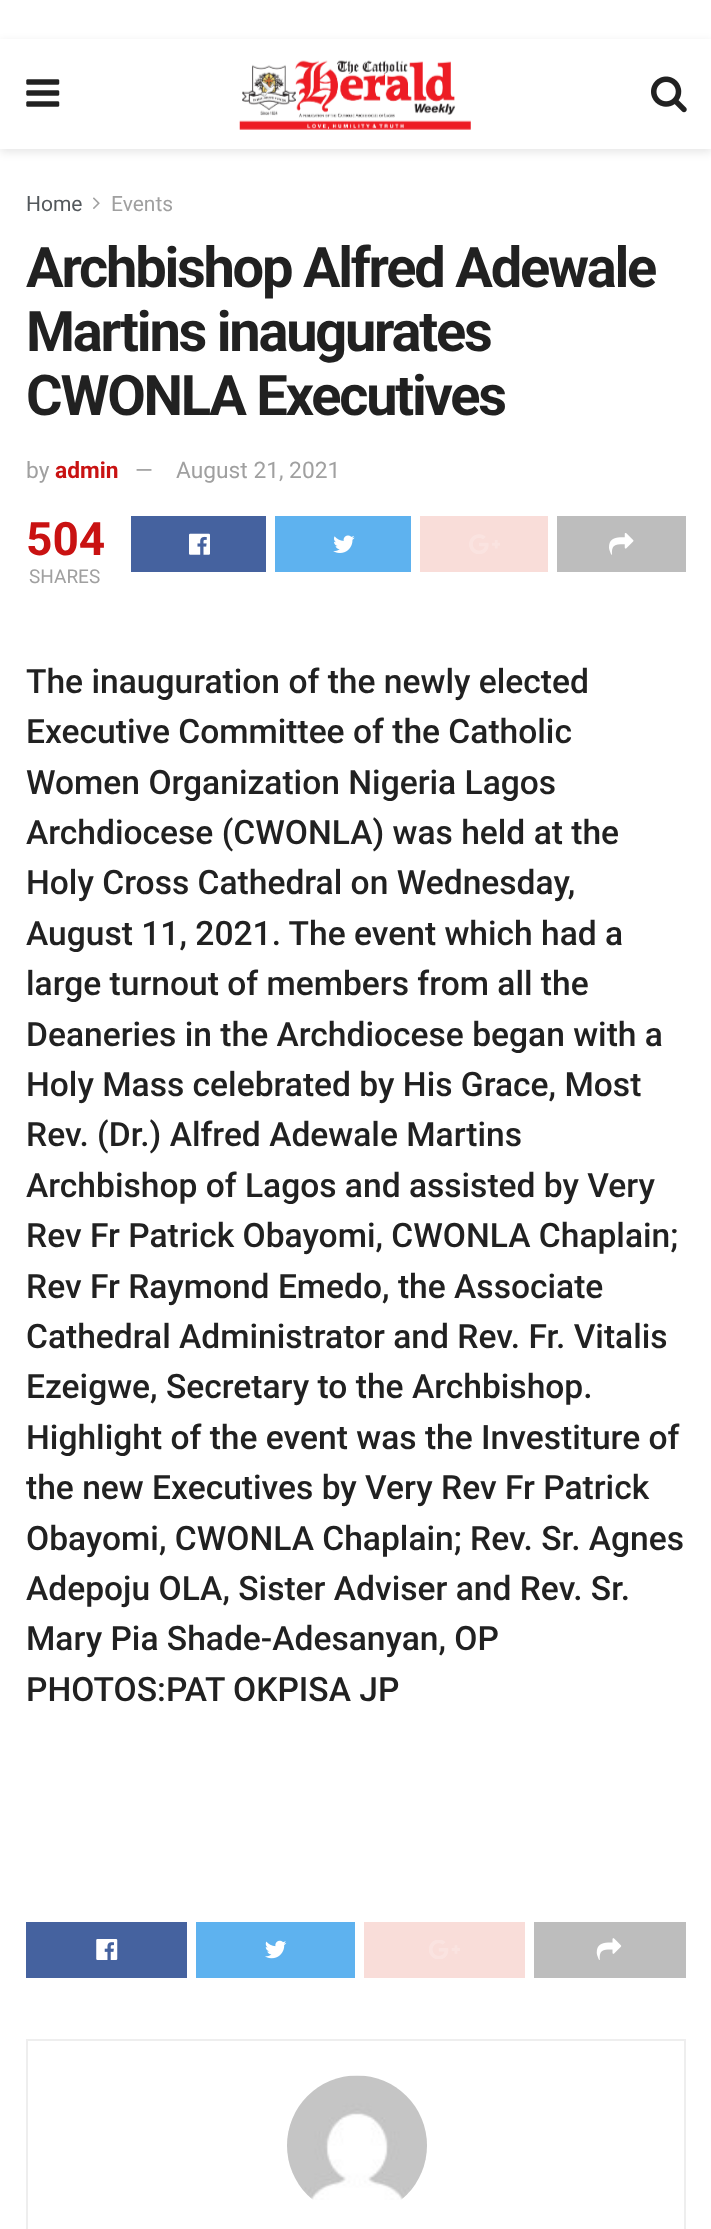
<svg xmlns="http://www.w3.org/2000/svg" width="711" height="2229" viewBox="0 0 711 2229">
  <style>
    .t1 { font: 21px Roboto; fill: #53585c; }
    .t2 { font: 21px Roboto; fill: #a0a0a0; }
    .t3 { font: bold 56px Roboto; letter-spacing: -2.25px; fill: #212121; }
    .t4 { font: 22.75px Roboto; fill: #a0a0a0; }
    .t5 { font: bold 22.75px Roboto; fill: #c91212; }
    .t6 { font: bold 46px Roboto; fill: #c91212; }
    .t7 { font: 19px Roboto; fill: #a0a0a0; }
    .t8 { font: 500 33.6px Roboto; fill: #212121; }
  </style>
  <rect width="100%" height="100%" fill="#fff"/>
  <rect x="0" y="42" width="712" height="110" fill="#0000001a" filter="blur(5px)"/>
  <rect x="0" y="39" width="711" height="110" fill="#fff"/>
  <image x="26" y="79" width="34" height="28" href="images/1.png"/>
  <image x="239" y="60" width="232" height="70" href="images/2.png"/>
  <image x="651" y="76" width="36" height="37" href="images/3.png"/>
  <text x="26" y="211" class="t1">Home</text>
  <image x="93" y="197" width="7" height="12" href="images/4.png"/>
  <text x="111" y="211" class="t2">Events</text>
  <text x="26" y="287" class="t3">Archbishop Alfred Adewale</text>
  <text x="26" y="351" class="t3">Martins inaugurates</text>
  <text x="26" y="415" class="t3">CWONLA Executives</text>
  <text x="26" y="478" class="t4">by</text>
  <text x="55" y="478" class="t5">admin</text>
  <text x="135" y="478" class="t4">—</text>
  <text x="176" y="478" class="t4">August 21, 2021</text>
  <text x="26" y="555" class="t6">504</text>
  <text x="29" y="583" class="t7">SHARES</text>
  <rect x="131" y="516" width="135" height="56" fill="#45629f"/>
  <image x="189" y="533" width="21" height="22" href="images/5.png"/>
  <rect x="275" y="516" width="136" height="56" fill="#5eb2ef"/>
  <image x="333" y="535" width="22" height="18" href="images/6.png"/>
  <rect x="420" y="516" width="128" height="56" fill="#f9ddd9"/>
  <image x="469" y="534" width="31" height="20" href="images/7.png"/>
  <rect x="557" y="516" width="129" height="56" fill="#bdbdbd"/>
  <image x="609" y="533" width="25" height="22" href="images/8.png"/>
  <text x="26" y="693" class="t8">The inauguration of the newly elected</text>
  <text x="26" y="743" class="t8">Executive Committee of the Catholic</text>
  <text x="26" y="794" class="t8">Women Organization Nigeria Lagos</text>
  <text x="26" y="844" class="t8">Archdiocese (CWONLA) was held at the</text>
  <text x="26" y="894" class="t8">Holy Cross Cathedral on Wednesday,</text>
  <text x="26" y="945" class="t8">August 11, 2021. The event which had a</text>
  <text x="26" y="995" class="t8">large turnout of members from all the</text>
  <text x="26" y="1046" class="t8">Deaneries in the Archdiocese began with a</text>
  <text x="26" y="1096" class="t8">Holy Mass celebrated by His Grace, Most</text>
  <text x="26" y="1146" class="t8">Rev. (Dr.) Alfred Adewale Martins</text>
  <text x="26" y="1197" class="t8">Archbishop of Lagos and assisted by Very</text>
  <text x="26" y="1247" class="t8">Rev Fr Patrick Obayomi, CWONLA Chaplain;</text>
  <text x="26" y="1298" class="t8">Rev Fr Raymond Emedo, the Associate</text>
  <text x="26" y="1348" class="t8">Cathedral Administrator and Rev. Fr. Vitalis</text>
  <text x="26" y="1398" class="t8">Ezeigwe, Secretary to the Archbishop.</text>
  <text x="26" y="1449" class="t8">Highlight of the event was the Investiture of</text>
  <text x="26" y="1499" class="t8">the new Executives by Very Rev Fr Patrick</text>
  <text x="26" y="1550" class="t8">Obayomi, CWONLA Chaplain; Rev. Sr. Agnes</text>
  <text x="26" y="1600" class="t8">Adepoju OLA, Sister Adviser and Rev. Sr.</text>
  <text x="26" y="1650" class="t8">Mary Pia Shade-Adesanyan, OP</text>
  <text x="26" y="1701" class="t8">PHOTOS:PAT OKPISA JP</text>
  <rect x="26" y="1922" width="161" height="56" fill="#45629f"/>
  <image x="96" y="1939" width="22" height="21" href="images/9.png"/>
  <rect x="196" y="1922" width="159" height="56" fill="#5eb2ef"/>
  <image x="265" y="1940" width="22" height="19" href="images/10.png"/>
  <rect x="364" y="1922" width="161" height="56" fill="#f9ddd9"/>
  <image x="429" y="1940" width="31" height="19" href="images/11.png"/>
  <rect x="534" y="1922" width="152" height="56" fill="#bdbdbd"/>
  <image x="596" y="1938" width="26" height="22" href="images/12.png"/>
  <rect x="27" y="2040" width="658" height="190" fill="none" stroke="#eee" stroke-width="2"/>
  <image x="287" y="2075" width="140" height="125" href="images/13.png"/>
</svg>
